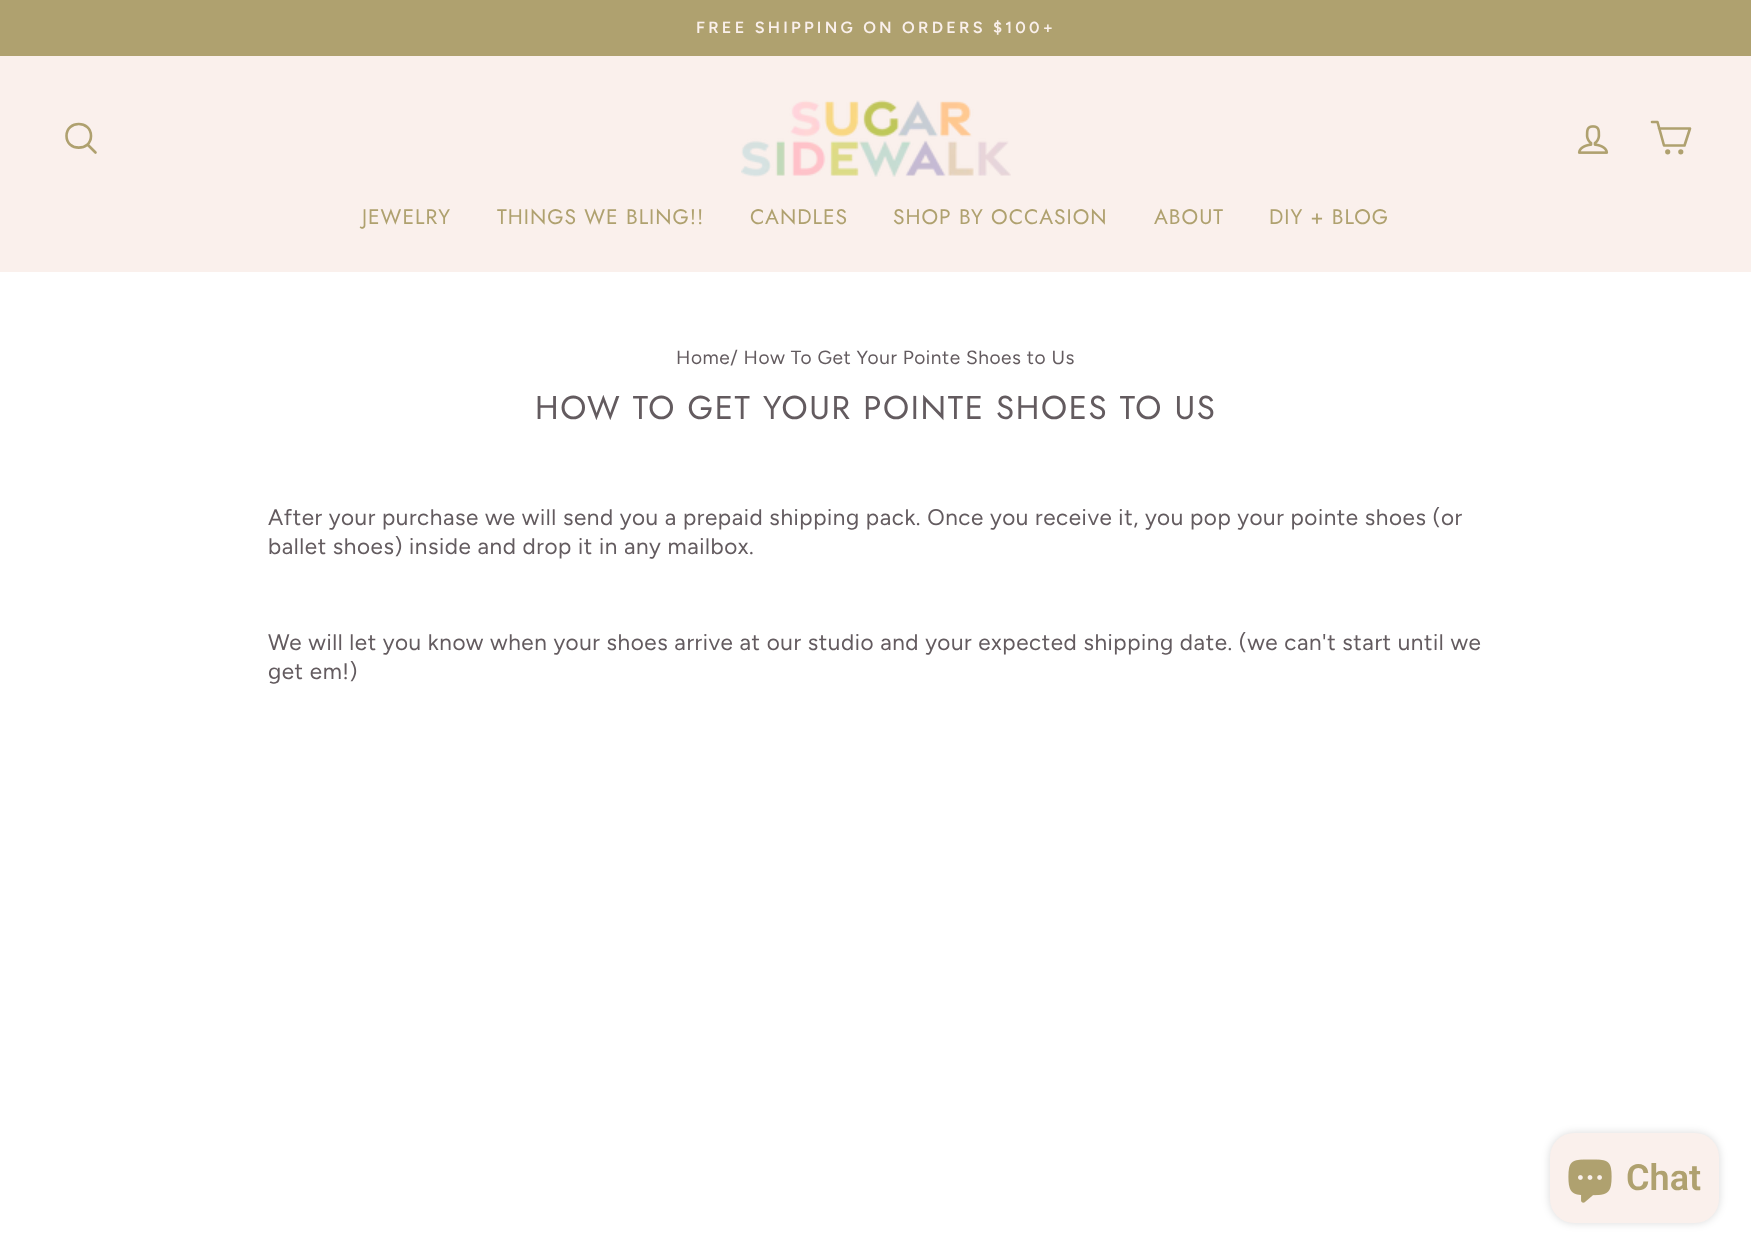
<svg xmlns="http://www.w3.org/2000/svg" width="1751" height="1253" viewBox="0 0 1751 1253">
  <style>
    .t1 { font: 600 16.25px Figtree; letter-spacing: 3.25px; fill: #faf0ec; }
    .t2 { font: 21px Jost; letter-spacing: 1px; fill: #afa16f; }
    .t3 { font: 19.1px Figtree; letter-spacing: 0.56px; fill: #635b5f; }
    .t4 { font: 33px Jost; letter-spacing: 1.65px; fill: #635b5f; }
    .t5 { font: 22.5px Figtree; letter-spacing: 0.56px; fill: #635b5f; }
    .t6 { font: 600 36px Roboto; fill: #afa16f; }
  </style>
  <rect width="100%" height="100%" fill="#fff"/>
  <rect x="0" y="0" width="1751" height="56" fill="#afa16f"/>
  <text x="696" y="33" class="t1">FREE SHIPPING ON ORDERS $100+</text>
  <rect x="0" y="56" width="1751" height="216" fill="#faf0ec"/>
  <path d="M91 136C91 151.5 66.5 151.5 66.5 136C66.5 120 91 120 91 136ZM95.5 152.5L87.5 144.5" fill="none" stroke="#afa16f" stroke-width="2.6" stroke-linecap="round" stroke-linejoin="round"/>
  <image x="741" y="100" width="270" height="77" href="images/1.png"/>
  <image x="1577" y="125" width="32" height="29" href="images/2.png"/>
  <path d="M1659 128.5H1690L1684.5 145.5H1664L1657.5 122H1652" fill="none" stroke="#afa16f" stroke-width="2.6" stroke-linecap="round" stroke-linejoin="round"/>
  <circle cx="1667.7" cy="151.8" r="1.3" fill="none" stroke="#afa16f" stroke-width="2.6"/>
  <circle cx="1680.8" cy="151.8" r="1.3" fill="none" stroke="#afa16f" stroke-width="2.6"/>
  <text x="362" y="224" class="t2">JEWELRY</text>
  <text x="497" y="224" class="t2">THINGS WE BLING!!</text>
  <text x="750" y="224" class="t2">CANDLES</text>
  <text x="893" y="224" class="t2">SHOP BY OCCASION</text>
  <text x="1154" y="224" class="t2">ABOUT</text>
  <text x="1269" y="224" class="t2">DIY + BLOG</text>
  <text x="676" y="364" class="t3">Home/ How To Get Your Pointe Shoes to Us</text>
  <text x="535" y="419" class="t4">HOW TO GET YOUR POINTE SHOES TO US</text>
  <text x="268" y="525" class="t5">After your purchase we will send you a prepaid shipping pack. Once you receive it, you pop your pointe shoes (or</text>
  <text x="268" y="554" class="t5">ballet shoes) inside and drop it in any mailbox.</text>
  <text x="268" y="650" class="t5">We will let you know when your shoes arrive at our studio and your expected shipping date. (we can't start until we</text>
  <text x="268" y="679" class="t5">get em!)</text>
  <rect x="1550" y="1133" width="169" height="90" rx="24" fill="#00000026" filter="blur(4px)"/>
  <rect x="1550" y="1133" width="169" height="90" rx="24" fill="#faf0ec"/>
  <image x="1568" y="1159" width="44" height="44" href="images/3.png"/>
  <text x="1626" y="1190" class="t6">Chat</text>
</svg>
